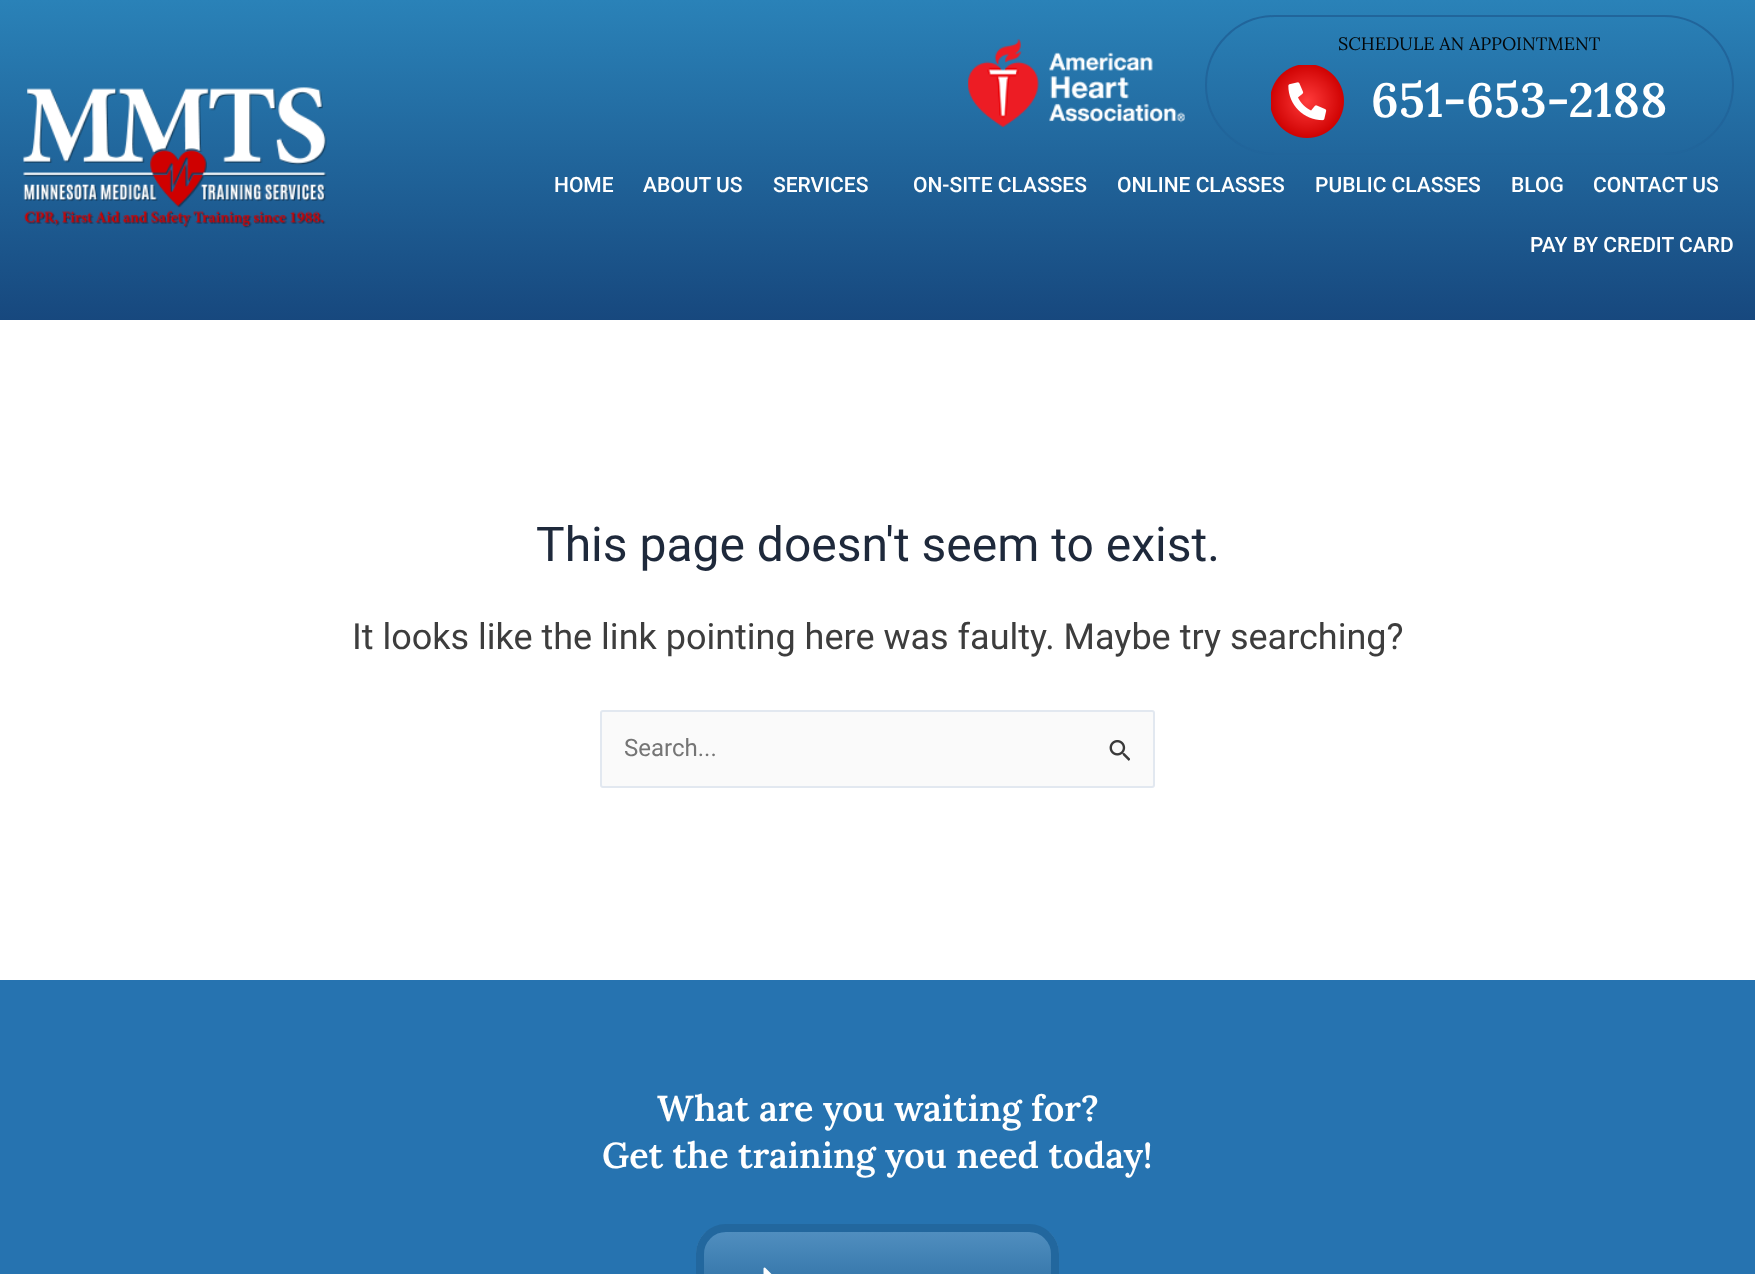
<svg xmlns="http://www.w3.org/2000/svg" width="1755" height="1274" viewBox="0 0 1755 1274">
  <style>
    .t1 { font: 18px Lora; fill: #040708; }
    .t2 { font: 600 48px Lora; fill: #fff; }
    .t3 { font: 500 21px Roboto; fill: #fff; }
    .t4 { font: 48px Roboto; fill: #1e293b; }
    .t5 { font: 36px Roboto; fill: #3d3d3d; }
    .t6 { font: 24px Roboto; fill: #757575; }
    .t7 { font: 600 36px Lora; fill: #fff; }
  </style>
  <defs>
    <linearGradient id="g1" gradientUnits="userSpaceOnUse" x1="878" y1="0" x2="878" y2="320"><stop offset="0" stop-color="#2a82b8"/><stop offset="1" stop-color="#17487e"/></linearGradient>
    <clipPath id="clip1"><rect x="696" y="1224" width="363" height="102" rx="30"/></clipPath>
    <linearGradient id="g2" gradientUnits="userSpaceOnUse" x1="878" y1="1232" x2="878" y2="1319"><stop offset="0" stop-color="#508ebf"/><stop offset="1" stop-color="#21659b"/></linearGradient>
  </defs>
  <rect width="100%" height="100%" fill="#fff"/>
  <rect x="0" y="0" width="1755" height="320" fill="url(#g1)"/>
  <image x="23" y="87" width="304" height="141" href="images/1.png"/>
  <image x="968" y="39" width="217" height="88" href="images/2.png"/>
  <rect x="1206" y="16" width="527" height="138" rx="69" fill="none" stroke="#21659b" stroke-width="2"/>
  <text x="1338" y="50" class="t1">SCHEDULE AN APPOINTMENT</text>
  <image x="1271" y="65" width="73" height="73" href="images/3.png"/>
  <text x="1371" y="117" class="t2">651-653-2188</text>
  <text x="554" y="192" class="t3">HOME</text>
  <text x="643" y="192" class="t3">ABOUT US</text>
  <text x="773" y="192" class="t3">SERVICES</text>
  <text x="913" y="192" class="t3">ON-SITE CLASSES</text>
  <text x="1117" y="192" class="t3">ONLINE CLASSES</text>
  <text x="1315" y="192" class="t3">PUBLIC CLASSES</text>
  <text x="1511" y="192" class="t3">BLOG</text>
  <text x="1593" y="192" class="t3">CONTACT US</text>
  <text x="1530" y="252" class="t3">PAY BY CREDIT CARD</text>
  <text x="536" y="561" class="t4">This page doesn't seem to exist.</text>
  <text x="352" y="649" class="t5">It looks like the link pointing here was faulty. Maybe try searching?</text>
  <rect x="601" y="711" width="553" height="76" rx="2" fill="#fafafa" stroke="#e2e8f0" stroke-width="2"/>
  <text x="624" y="756" class="t6">Search...</text>
  <image x="1109" y="740" width="21" height="21" href="images/4.png"/>
  <rect x="0" y="980" width="1755" height="294" fill="#2673b0"/>
  <text x="657" y="1121" class="t7">What are you waiting for?</text>
  <text x="602" y="1168" class="t7">Get the training you need today!</text>
  <g clip-path="url(#clip1)">
    <rect x="696" y="1232" width="363" height="42" fill="url(#g2)"/>
  </g>
  <rect x="700" y="1228" width="355" height="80" rx="26" fill="none" stroke="#22679e" stroke-width="8"/>
  <image x="763" y="1267" width="9" height="7" href="images/5.png"/>
</svg>
